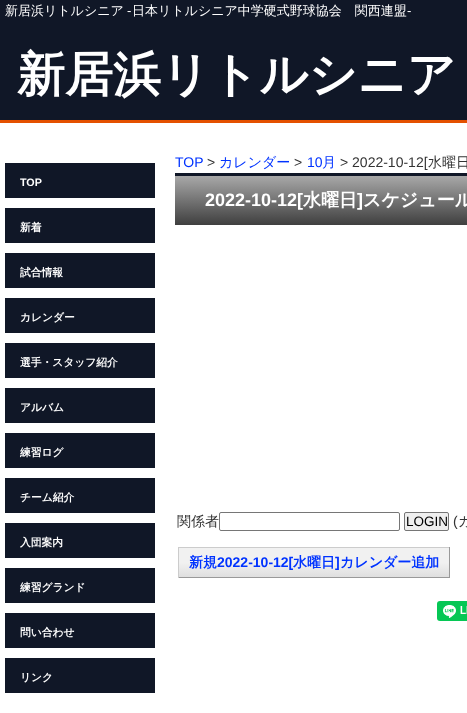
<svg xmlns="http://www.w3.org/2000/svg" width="467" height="713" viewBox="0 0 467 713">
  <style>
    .t1 { font: 500 13px WenQuanYi Zen Hei; fill: #fff; }
    .t2 { font: 13px Liberation Sans; fill: #fff; }
    .t3 { font: bold 48px WenQuanYi Zen Hei; fill: #fff; }
    .t4 { font: bold 10.75px Liberation Sans; fill: #fff; }
    .t5 { font: bold 10.75px WenQuanYi Zen Hei; fill: #fff; }
    .t6 { font: 14px Liberation Sans; fill: #03f; }
    .t7 { font: 14px Liberation Sans; fill: #333; }
    .t8 { font: 500 14px WenQuanYi Zen Hei; fill: #03f; }
    .t9 { font: 500 14px WenQuanYi Zen Hei; fill: #333; }
    .t10 { font: bold 18px Liberation Sans; fill: #fff; }
    .t11 { font: bold 18px WenQuanYi Zen Hei; fill: #fff; }
    .t12 { font: 13.5px Liberation Sans; fill: #000; }
    .t13 { font: bold 14px WenQuanYi Zen Hei; fill: #03f; }
    .t14 { font: bold 14px Liberation Sans; fill: #03f; }
  </style>
  <defs>
    <linearGradient id="g1" gradientUnits="userSpaceOnUse" x1="175" y1="176" x2="175" y2="225"><stop offset="0" stop-color="#a8a8a8"/><stop offset="1" stop-color="#3f3f3f"/></linearGradient>
    <linearGradient id="g2" gradientUnits="userSpaceOnUse" x1="179" y1="548" x2="179" y2="577"><stop offset="0" stop-color="#fff"/><stop offset="0.01" stop-color="#f1f1f1"/><stop offset="0.5" stop-color="#f1f1f1"/><stop offset="0.99" stop-color="#dfdfdf"/><stop offset="1" stop-color="#ccc"/></linearGradient>
  </defs>
  <rect width="100%" height="100%" fill="#fff"/>
  <rect x="0" y="0" width="467" height="120" fill="#101727"/>
  <rect x="0" y="120" width="467" height="3" fill="#e45000"/>
  <text x="5" y="15" class="t1">新居浜リトルシニア</text>
  <text x="127" y="15" class="t2">-</text>
  <text x="132" y="15" class="t1">日本リトルシニア中学硬式野球協会　関西連盟</text>
  <text x="407" y="15" class="t2">-</text>
  <text x="17" y="91" class="t3">新居浜リトルシニア</text>
  <rect x="5" y="163" width="150" height="35" fill="#101727"/>
  <text x="20" y="186" class="t4">TOP</text>
  <rect x="5" y="208" width="150" height="35" fill="#101727"/>
  <text x="20" y="231" class="t5">新着</text>
  <rect x="5" y="253" width="150" height="35" fill="#101727"/>
  <text x="20" y="276" class="t5">試合情報</text>
  <rect x="5" y="298" width="150" height="35" fill="#101727"/>
  <text x="20" y="321" class="t5">カレンダー</text>
  <rect x="5" y="343" width="150" height="35" fill="#101727"/>
  <text x="20" y="366" class="t5">選手・スタッフ紹介</text>
  <rect x="5" y="388" width="150" height="35" fill="#101727"/>
  <text x="20" y="411" class="t5">アルバム</text>
  <rect x="5" y="433" width="150" height="35" fill="#101727"/>
  <text x="20" y="456" class="t5">練習ログ</text>
  <rect x="5" y="478" width="150" height="35" fill="#101727"/>
  <text x="20" y="501" class="t5">チーム紹介</text>
  <rect x="5" y="523" width="150" height="35" fill="#101727"/>
  <text x="20" y="546" class="t5">入団案内</text>
  <rect x="5" y="568" width="150" height="35" fill="#101727"/>
  <text x="20" y="591" class="t5">練習グランド</text>
  <rect x="5" y="613" width="150" height="35" fill="#101727"/>
  <text x="20" y="636" class="t5">問い合わせ</text>
  <rect x="5" y="658" width="150" height="35" fill="#101727"/>
  <text x="20" y="681" class="t5">リンク</text>
  <text x="175" y="167" class="t6">TOP</text>
  <text x="207" y="167" class="t7">&gt;</text>
  <text x="219" y="167" class="t8">カレンダー</text>
  <text x="294" y="167" class="t7">&gt;</text>
  <text x="307" y="167" class="t6">10</text>
  <text x="322" y="167" class="t8">月</text>
  <text x="340" y="167" class="t7">&gt; 2022-10-12[</text>
  <text x="428" y="167" class="t9">水曜日</text>
  <rect x="175" y="176" width="292" height="49" fill="url(#g1)"/>
  <rect x="175" y="173" width="292" height="3" fill="#101727"/>
  <text x="205" y="206" class="t10">2022-10-12[</text>
  <text x="303" y="206" class="t11">水曜日</text>
  <text x="357" y="206" class="t10">]</text>
  <text x="363" y="206" class="t11">スケジュール</text>
  <text x="177" y="526" class="t9">関係者</text>
  <rect x="219.5" y="512.5" width="180" height="18" rx="1.5" fill="none" stroke="#767676"/>
  <rect x="404.5" y="512.5" width="44" height="18" rx="1.5" fill="#efefef" stroke="#767676"/>
  <text x="406" y="526" class="t12">LOGIN</text>
  <text x="453" y="526" class="t7">(</text>
  <text x="458" y="526" class="t9">カ</text>
  <rect x="179" y="548" width="270" height="29" fill="url(#g2)"/>
  <rect x="178" y="547" width="272" height="1" fill="#ccc"/>
  <rect x="449" y="547" width="1" height="31" fill="#999"/>
  <rect x="178" y="577" width="272" height="1" fill="#999"/>
  <rect x="178" y="547" width="1" height="31" fill="#ccc"/>
  <text x="189" y="567" class="t13">新規</text>
  <text x="217" y="567" class="t14">2022-10-12[</text>
  <text x="293" y="567" class="t13">水曜日</text>
  <text x="335" y="567" class="t14">]</text>
  <text x="340" y="567" class="t13">カレンダー追加</text>
  <image x="437" y="601" width="30" height="20" href="images/1.png"/>
</svg>
